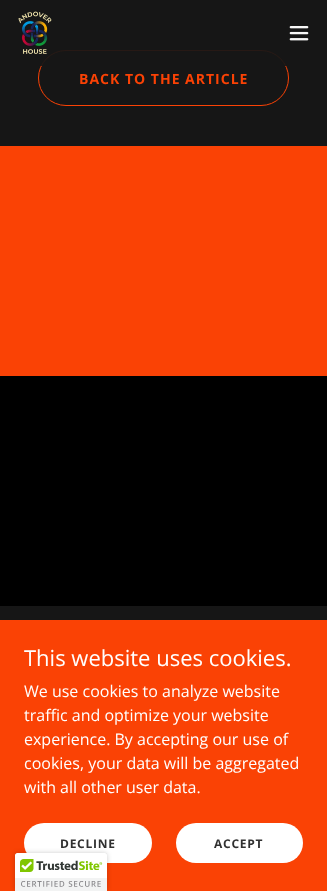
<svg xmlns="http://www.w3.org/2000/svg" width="327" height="891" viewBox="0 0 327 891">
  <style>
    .t1 { font: bold 14px Open Sans; letter-spacing: 1px; fill: #fa4205; }
    .t2 { font: 22px Open Sans; fill: #fff; }
    .t3 { font: 16px Open Sans; fill: #fff; }
    .t4 { font: bold 12px Open Sans; letter-spacing: 0.75px; fill: #303030; }
  </style>
  <rect width="100%" height="100%" fill="#161616"/>
  <rect x="38.5" y="50.5" width="250" height="55" rx="27.5" fill="none" stroke="#fa4205"/>
  <rect x="40" y="50" width="247" height="16" fill="#161616e6"/>
  <rect x="41" y="50" width="245" height="16" fill="#16161640"/>
  <image x="18" y="11" width="34" height="43" href="images/1.png"/>
  <image x="289" y="26" width="20" height="15" href="images/2.png"/>
  <text x="79" y="84" class="t1">BACK TO THE ARTICLE</text>
  <rect x="0" y="146" width="327" height="230" fill="#fa4205"/>
  <rect x="0" y="376" width="327" height="230" fill="#000"/>
  <rect x="0" y="620" width="327" height="271" fill="#fa4205"/>
  <text x="24" y="666" class="t2">This website uses cookies.</text>
  <text x="24" y="697" class="t3">We use cookies to analyze website</text>
  <text x="24" y="721" class="t3">traffic and optimize your website</text>
  <text x="24" y="745" class="t3">experience. By accepting our use of</text>
  <text x="24" y="769" class="t3">cookies, your data will be aggregated</text>
  <text x="24" y="793" class="t3">with all other user data.</text>
  <rect x="24" y="823" width="128" height="40" rx="20" fill="#fff"/>
  <text x="60" y="848" class="t4">DECLINE</text>
  <rect x="176" y="823" width="127" height="40" rx="20" fill="#fff"/>
  <text x="214" y="848" class="t4">ACCEPT</text>
  <rect x="15" y="853" width="92" height="38" rx="2" fill="#00000033" filter="blur(2.5px)"/>
  <image x="15" y="853" width="92" height="38" href="images/3.png"/>
</svg>
